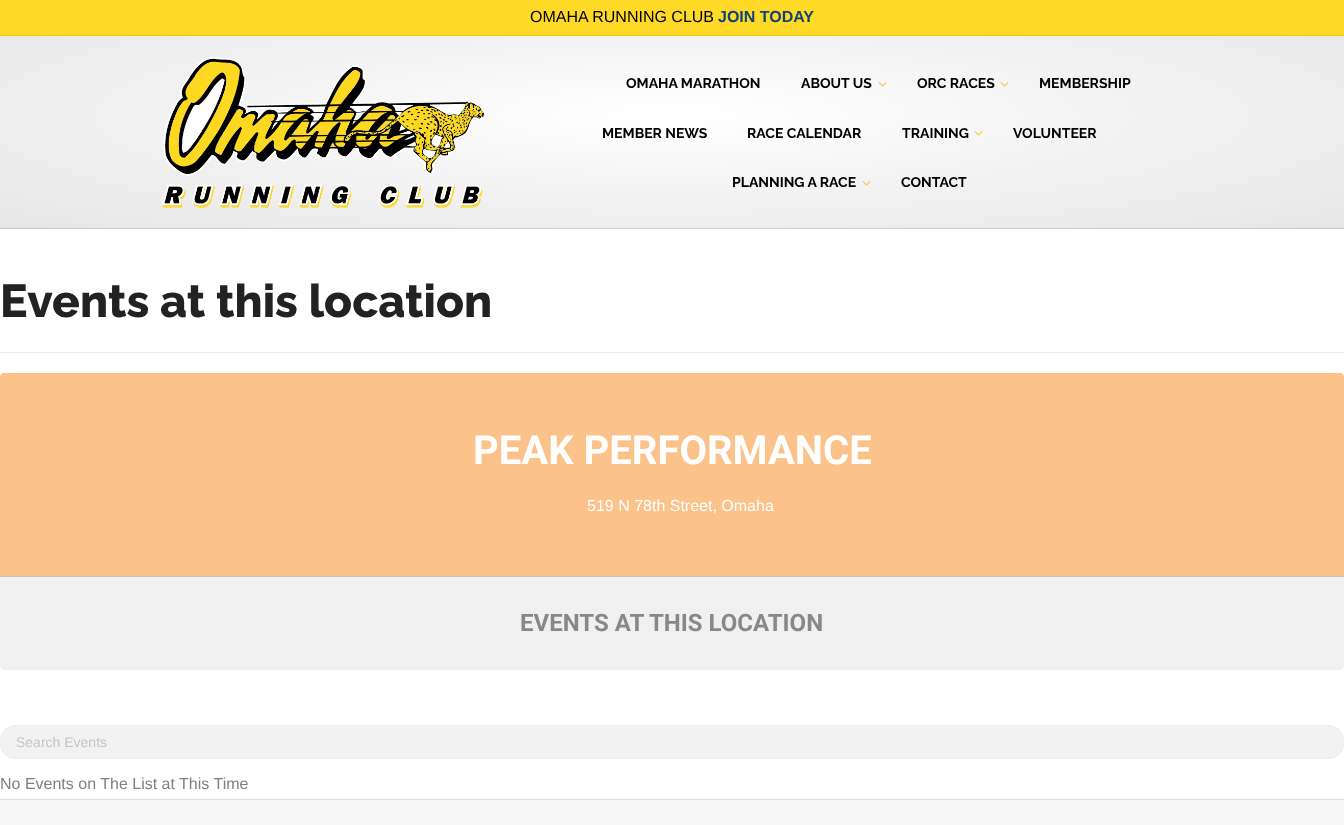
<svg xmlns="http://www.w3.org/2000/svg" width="1344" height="825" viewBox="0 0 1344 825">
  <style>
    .t1 { font: 16px Liberation Sans; fill: #000; }
    .t2 { font: bold 16px Liberation Sans; fill: #12427a; }
    .t3 { font: bold 14px Raleway; fill: #000; }
    .t4 { font: 100 46px Raleway; fill: #222; }
    .t5 { font: bold 40px Roboto; fill: #fff; }
    .t6 { font: 16px Liberation Sans; fill: #fff; }
    .t7 { font: bold 24px Roboto; fill: #888; }
    .t8 { font: 14px Liberation Sans; fill: #c4c4c4; }
    .t9 { font: 16px Liberation Sans; fill: #808080; }
  </style>
  <defs>
    <radialGradient id="g1" gradientUnits="userSpaceOnUse" cx="0" cy="0" r="1" gradientTransform="matrix(950 0 0 162 672 115)"><stop offset="0" stop-color="#fff"/><stop offset="1" stop-color="#e6e6e6"/></radialGradient>
    <radialGradient id="g2" gradientUnits="userSpaceOnUse" cx="0" cy="0" r="1" gradientTransform="matrix(950 0 0 162 672 115)"><stop offset="0" stop-color="#dedede"/><stop offset="1" stop-color="#c8c8c8"/></radialGradient>
  </defs>
  <rect width="100%" height="100%" fill="#fff"/>
  <rect x="0" y="0" width="1344" height="35" fill="#fed925"/>
  <rect x="0" y="35" width="1344" height="1" fill="#efc601"/>
  <text x="530" y="22" class="t1">OMAHA RUNNING CLUB</text>
  <text x="718" y="22" class="t2">JOIN TODAY</text>
  <rect x="0" y="36" width="1344" height="192" fill="url(#g1)"/>
  <rect x="0" y="228" width="1344" height="1" fill="url(#g2)"/>
  <image x="162" y="57" width="324" height="151" href="images/1.png"/>
  <text x="626" y="88" class="t3">OMAHA MARATHON</text>
  <text x="801" y="88" class="t3">ABOUT US</text>
  <image x="878" y="82" width="9" height="5" href="images/2.png"/>
  <text x="917" y="88" class="t3">ORC RACES</text>
  <image x="1000" y="82" width="9" height="5" href="images/3.png"/>
  <text x="1039" y="88" class="t3">MEMBERSHIP</text>
  <text x="602" y="138" class="t3">MEMBER NEWS</text>
  <text x="747" y="138" class="t3">RACE CALENDAR</text>
  <text x="902" y="138" class="t3">TRAINING</text>
  <image x="974" y="131" width="9" height="5" href="images/4.png"/>
  <text x="1013" y="138" class="t3">VOLUNTEER</text>
  <text x="732" y="187" class="t3">PLANNING A RACE</text>
  <image x="862" y="181" width="9" height="5" href="images/5.png"/>
  <text x="901" y="187" class="t3">CONTACT</text>
  <rect x="0" y="352" width="1344" height="1" fill="#eee"/>
  <text x="0" y="317" class="t4">Events at this location</text>
  <path d="M5 373H1339C1342 373 1344 375 1344 378V576H0V378C0 375 2 373 5 373Z" fill="#dcdcdc"/>
  <path d="M5 373H1339C1342 373 1344 375 1344 378V576H0V378C0 375 2 373 5 373Z" fill="#ffbf80e3"/>
  <text x="473" y="464" class="t5">PEAK PERFORMANCE</text>
  <text x="587" y="511" class="t6">519 N 78th Street, Omaha</text>
  <path d="M0 576H1344V665C1344 668 1342 670 1339 670H5C2 670 0 668 0 665Z" fill="#f0f0f0"/>
  <rect x="0" y="576" width="1344" height="1" fill="#c1c1c1"/>
  <text x="520" y="631" class="t7">EVENTS AT THIS LOCATION</text>
  <rect x="0.5" y="725.5" width="1343" height="33" rx="14.5" fill="#f2f2f2" stroke="#ededed"/>
  <text x="16" y="747" class="t8">Search Events</text>
  <text x="0" y="789" class="t9">No Events on The List at This Time</text>
  <rect x="0" y="800" width="1344" height="25" fill="#f7f7f7"/>
  <rect x="0" y="799" width="1344" height="1" fill="#dedede"/>
</svg>
